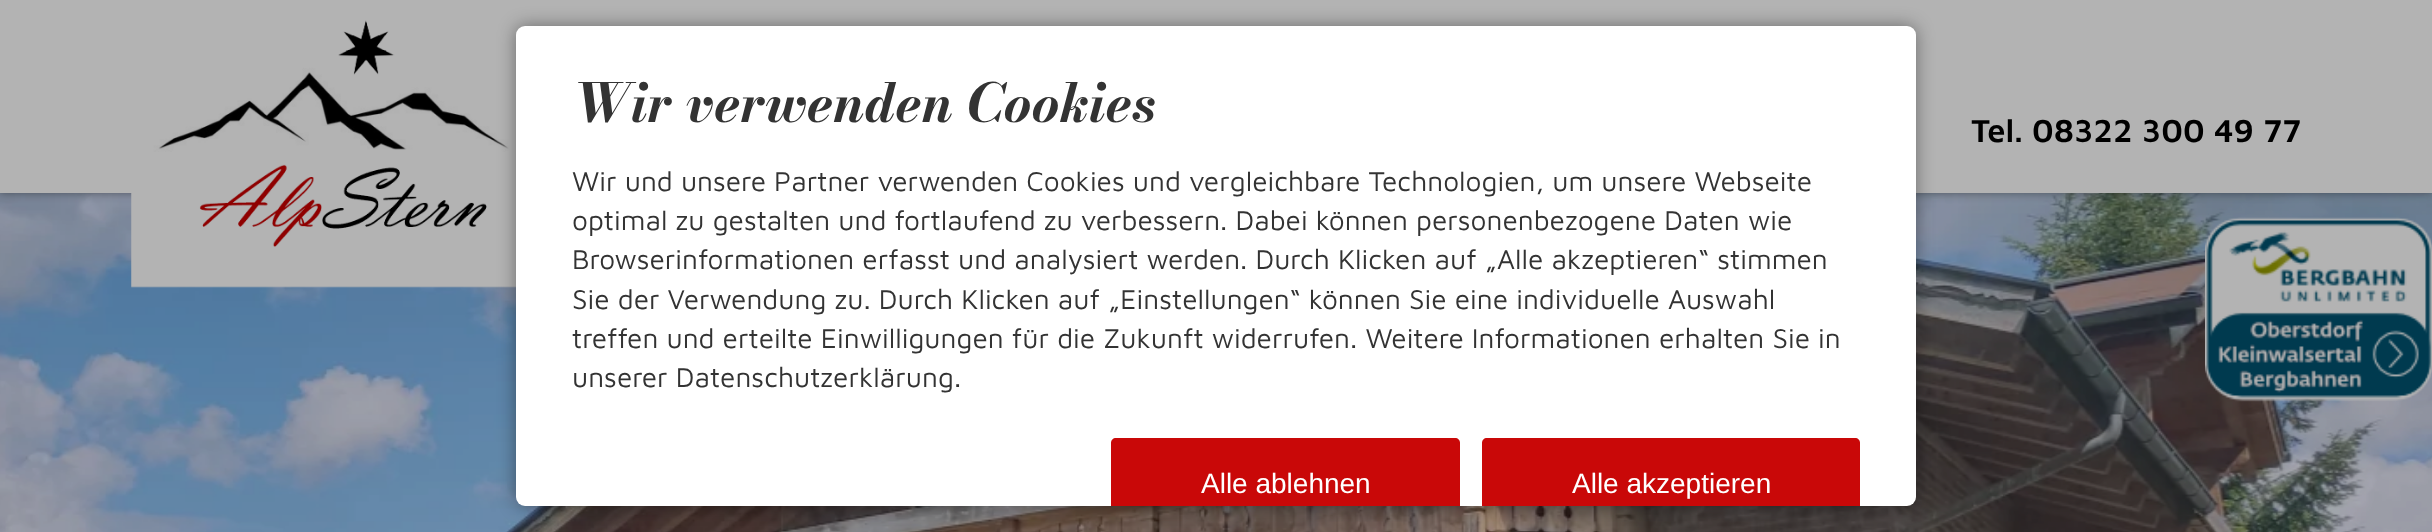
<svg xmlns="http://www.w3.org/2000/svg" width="2432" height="532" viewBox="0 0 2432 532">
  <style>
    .t1 { font: italic bold 53.25px Bodoni Moda; fill: #333; }
    .t2 { font: 28px Maven Pro; fill: #333; }
    .t3 { font: 28px Liberation Sans; fill: #fff; }
    .t4 { font: 600 32.75px Maven Pro; fill: #000; }
  </style>
  <rect width="100%" height="100%" fill="#fff"/>
  <image x="0" y="193" width="2432" height="339" href="images/3.png"/>
  <rect x="0" y="0" width="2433" height="193" fill="#00000066" filter="blur(4.5px)"/>
  <rect x="0" y="0" width="2432" height="193" fill="#b3b3b3"/>
  <image x="131" y="20" width="438" height="268" href="images/1.png"/>
  <rect x="516" y="26" width="1400" height="480" rx="9" fill="#00000066" filter="blur(9px)"/>
  <rect x="516" y="26" width="1400" height="480" rx="9" fill="#fff"/>
  <text x="572" y="122" class="t1">Wir verwenden Cookies</text>
  <text x="572" y="191" class="t2">Wir und unsere Partner verwenden Cookies und vergleichbare Technologien, um unsere Webseite</text>
  <text x="572" y="230" class="t2">optimal zu gestalten und fortlaufend zu verbessern. Dabei können personenbezogene Daten wie</text>
  <text x="572" y="269" class="t2">Browserinformationen erfasst und analysiert werden. Durch Klicken auf „Alle akzeptieren“ stimmen</text>
  <text x="572" y="309" class="t2">Sie der Verwendung zu. Durch Klicken auf „Einstellungen“ können Sie eine individuelle Auswahl</text>
  <text x="572" y="348" class="t2">treffen und erteilte Einwilligungen für die Zukunft widerrufen. Weitere Informationen erhalten Sie in</text>
  <text x="572" y="387" class="t2">unserer Datenschutzerklärung.</text>
  <path d="M1116 438H1455C1458 438 1460 440 1460 443V506H1111V443C1111 440 1113 438 1116 438Z" fill="#c90808"/>
  <text x="1201" y="493" class="t3">Alle ablehnen</text>
  <path d="M1487 438H1855C1858 438 1860 440 1860 443V506H1482V443C1482 440 1484 438 1487 438Z" fill="#c90808"/>
  <text x="1572" y="493" class="t3">Alle akzeptieren</text>
  <text x="1971" y="142" class="t4">Tel. 08322 300 49 77</text>
  <image x="2205" y="217" width="227" height="185" href="images/2.png"/>
</svg>
